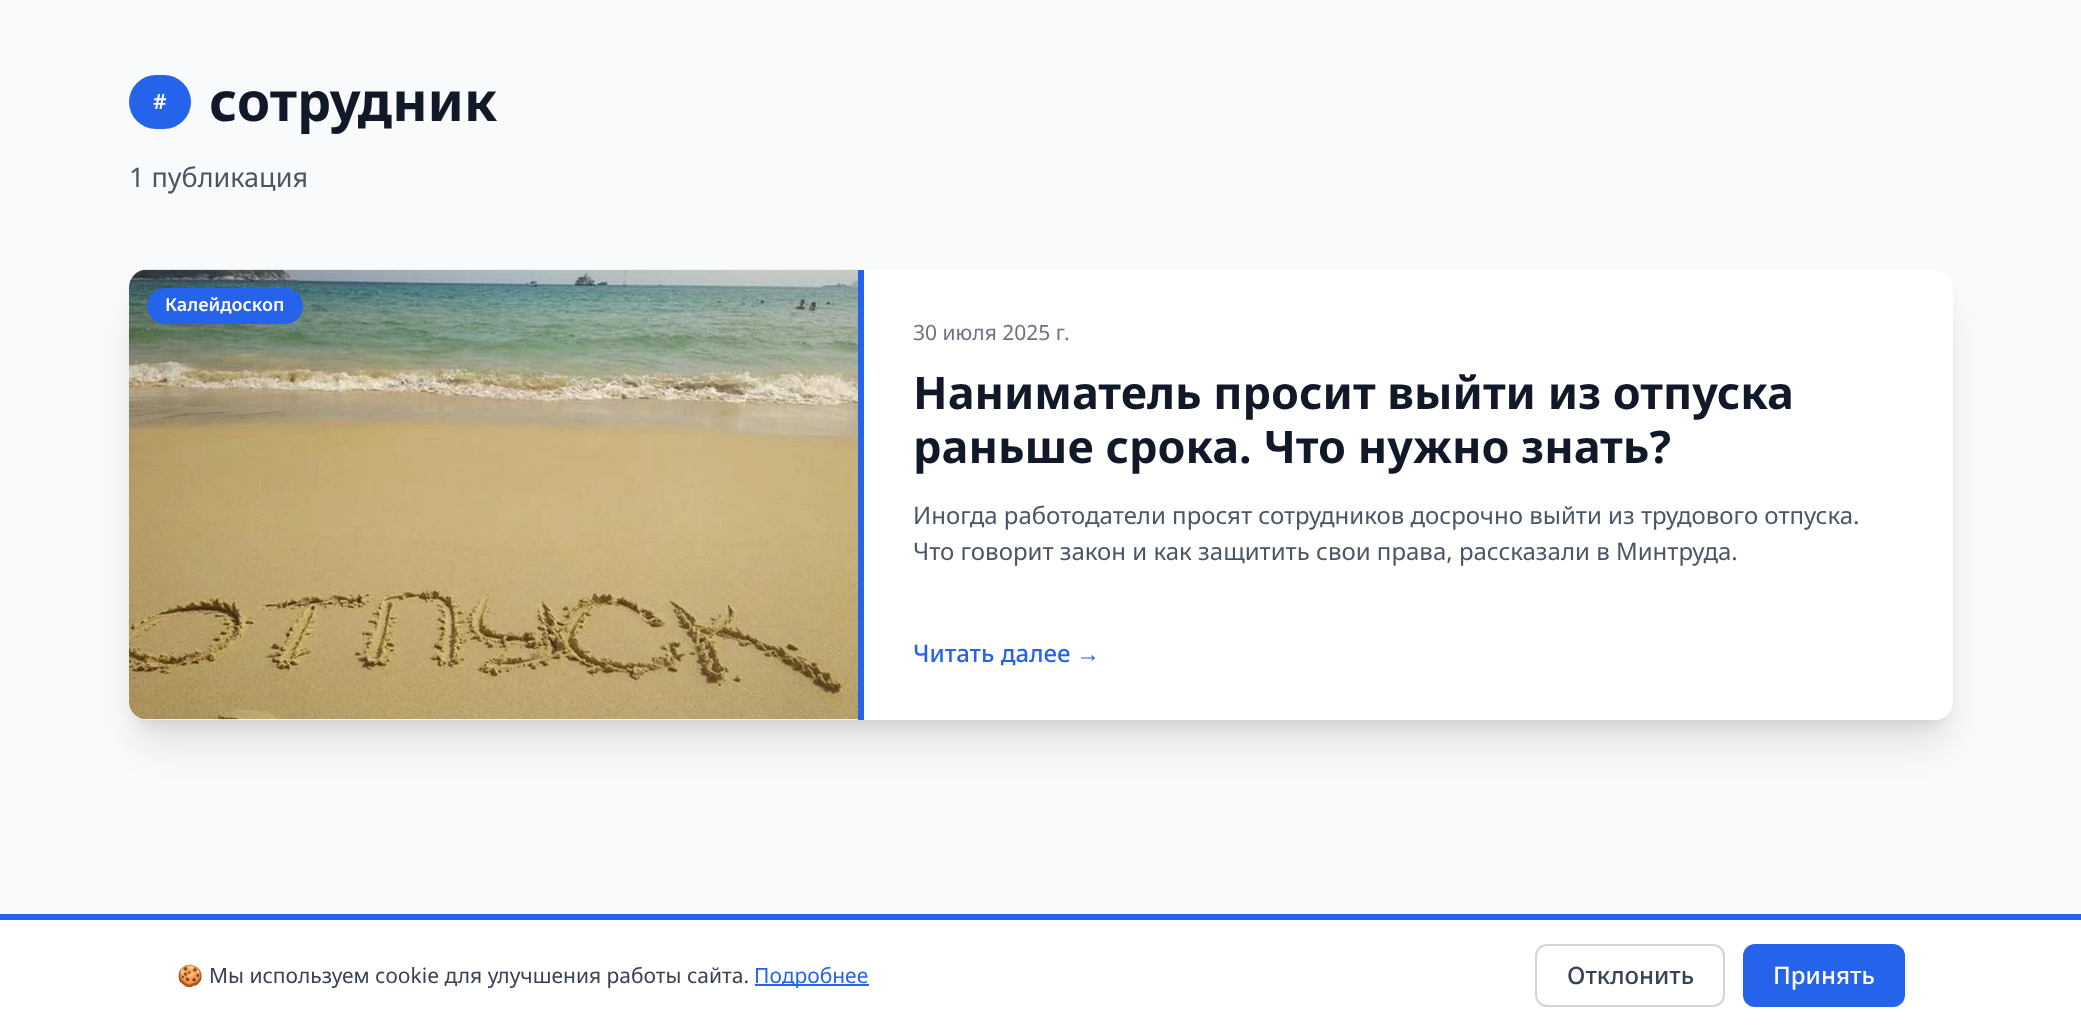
<svg xmlns="http://www.w3.org/2000/svg" width="2081" height="1030" viewBox="0 0 2081 1030">
  <style>
    .t1 { font: 600 21px Noto Sans; fill: #fff; }
    .t2 { font: bold 54px Noto Sans; fill: #111827; }
    .t3 { font: 27px Noto Sans; fill: #4b5563; }
    .t4 { font: 600 18px Noto Sans; fill: #fff; }
    .t5 { font: 21px Noto Sans; fill: #6b7280; }
    .t6 { font: bold 45px Noto Sans; fill: #111827; }
    .t7 { font: 24px Noto Sans; fill: #4b5563; }
    .t8 { font: 500 24px Noto Sans; fill: #2563eb; }
    .t9 { font: 24px Liberation Sans; fill: #2563eb; }
    .t10 { font: 21px Noto Color Emoji; fill: #374151; }
    .t11 { font: 21px Noto Sans; fill: #374151; }
    .t12 { font: 21px Noto Sans; fill: #2563eb; }
    .t13 { font: 500 24px Noto Sans; fill: #374151; }
    .t14 { font: 500 24px Noto Sans; fill: #fff; }
  </style>
  <rect width="100%" height="100%" fill="#f9fafb"/>
  <rect x="129" y="75" width="62" height="54" rx="27" fill="#2563eb"/>
  <text x="153" y="109" class="t1">#</text>
  <text x="209" y="121" class="t2">сотрудник</text>
  <text x="129" y="187" class="t3">1 публикация</text>
  <rect x="138" y="291" width="1806" height="432" rx="9" fill="#0000001a" filter="blur(7.5px)"/>
  <rect x="137" y="308" width="1809" height="435" rx="11" fill="#0000001a" filter="blur(19px)"/>
  <rect x="129" y="270" width="1824" height="450" rx="18" fill="#fff"/>
  <image x="129" y="269" width="729" height="451" href="images/1.png"/>
  <rect x="147" y="288" width="156" height="36" rx="18" fill="#2563eb"/>
  <text x="165" y="311" class="t4">Калейдоскоп</text>
  <rect x="858" y="270" width="6" height="450" fill="#2563eb"/>
  <text x="913" y="340" class="t5">30 июля 2025 г.</text>
  <text x="913" y="409" class="t6">Наниматель просит выйти из отпуска</text>
  <text x="913" y="463" class="t6">раньше срока. Что нужно знать?</text>
  <text x="913" y="524" class="t7">Иногда работодатели просят сотрудников досрочно выйти из трудового отпуска.</text>
  <text x="913" y="560" class="t7">Что говорит закон и как защитить свои права, рассказали в Минтруда.</text>
  <text x="913" y="662" class="t8">Читать далее</text>
  <text x="1076" y="662" class="t9">→</text>
  <rect x="0" y="920" width="2081" height="110" fill="#fff"/>
  <rect x="0" y="914" width="2081" height="6" fill="#2563eb"/>
  <text x="177" y="983" class="t10">🍪</text>
  <text x="209" y="983" class="t11">Мы используем cookie для улучшения работы сайта.</text>
  <rect x="755" y="984" width="114" height="2" fill="#2563eb"/>
  <text x="754" y="983" class="t12">Подробнее</text>
  <rect x="1536" y="945" width="188" height="61" rx="11" fill="none" stroke="#d1d5db" stroke-width="2"/>
  <text x="1567" y="984" class="t13">Отклонить</text>
  <rect x="1743" y="944" width="162" height="63" rx="12" fill="#2563eb"/>
  <text x="1773" y="984" class="t14">Принять</text>
</svg>
